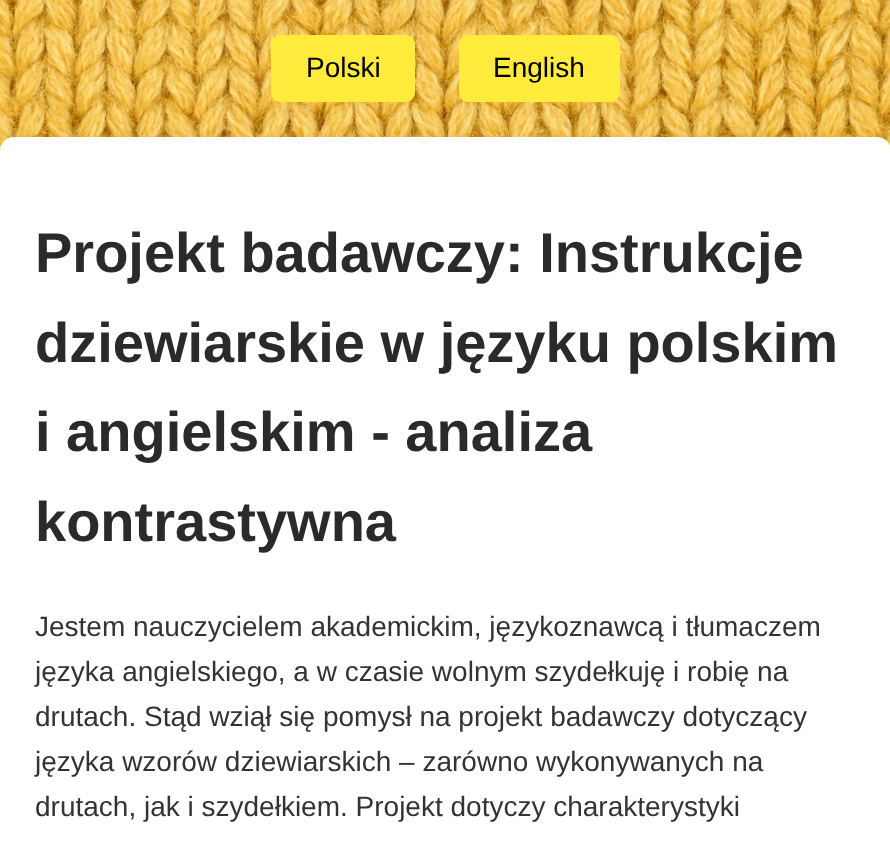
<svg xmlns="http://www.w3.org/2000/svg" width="890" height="843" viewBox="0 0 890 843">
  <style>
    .t1 { font: 28px Liberation Sans; fill: #000; }
    .t2 { font: bold 56px Liberation Sans; fill: #2a2a2a; }
    .t3 { font: 28px Liberation Sans; fill: #333; }
  </style>
  <rect width="100%" height="100%" fill="#fff"/>
  <image x="0" y="0" width="890" height="151" href="images/1.png"/>
  <rect x="271" y="35" width="144" height="67" rx="9" fill="#ffeb3b"/>
  <text x="306" y="77" class="t1">Polski</text>
  <rect x="459" y="35" width="161" height="67" rx="9" fill="#ffeb3b"/>
  <text x="493" y="77" class="t1">English</text>
  <rect x="0" y="137" width="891" height="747" rx="14" fill="#0000000d" filter="blur(9px)"/>
  <rect x="0" y="137" width="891" height="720" rx="14" fill="#fff"/>
  <text x="35" y="272" class="t2">Projekt badawczy: Instrukcje</text>
  <text x="35" y="362" class="t2">dziewiarskie w języku polskim</text>
  <text x="35" y="451" class="t2">i angielskim - analiza</text>
  <text x="35" y="541" class="t2">kontrastywna</text>
  <text x="35" y="636" class="t3">Jestem nauczycielem akademickim, językoznawcą i tłumaczem</text>
  <text x="35" y="681" class="t3">języka angielskiego, a w czasie wolnym szydełkuję i robię na</text>
  <text x="35" y="726" class="t3">drutach. Stąd wziął się pomysł na projekt badawczy dotyczący</text>
  <text x="35" y="771" class="t3">języka wzorów dziewiarskich – zarówno wykonywanych na</text>
  <text x="35" y="816" class="t3">drutach, jak i szydełkiem. Projekt dotyczy charakterystyki</text>
</svg>
